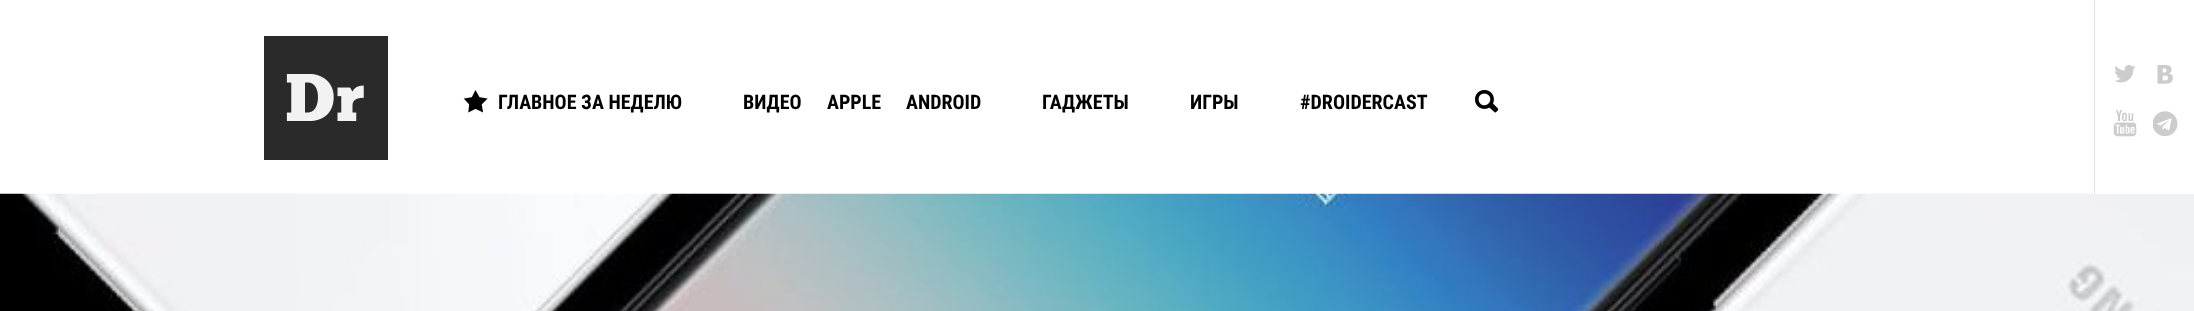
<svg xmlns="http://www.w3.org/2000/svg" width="2194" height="311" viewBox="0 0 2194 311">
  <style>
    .t1 { font: bold 20px Roboto Condensed; fill: #000; }
  </style>
  <rect width="100%" height="100%" fill="#fff"/>
  <rect x="264" y="36" width="124" height="124" fill="#2a2a2a"/>
  <image x="286" y="74" width="78" height="47" href="images/1.png"/>
  <image x="463" y="90" width="25" height="23" href="images/2.png"/>
  <text x="498" y="109" class="t1">ГЛАВНОЕ ЗА НЕДЕЛЮ</text>
  <text x="743" y="109" class="t1">ВИДЕО</text>
  <text x="827" y="109" class="t1">APPLE</text>
  <text x="906" y="109" class="t1">ANDROID</text>
  <text x="1042" y="109" class="t1">ГАДЖЕТЫ</text>
  <text x="1190" y="109" class="t1">ИГРЫ</text>
  <text x="1300" y="109" class="t1">#DROIDERCAST</text>
  <image x="1475" y="90" width="24" height="23" href="images/3.png"/>
  <rect x="2094" y="0" width="1" height="194" fill="#dfdfdf"/>
  <image x="2114" y="65" width="22" height="18" href="images/4.png"/>
  <image x="2157" y="65" width="16" height="19" href="images/5.png"/>
  <image x="2113" y="110" width="24" height="27" href="images/6.png"/>
  <image x="2153" y="111" width="25" height="25" href="images/7.png"/>
  <image x="0" y="193" width="2194" height="118" href="images/8.png"/>
</svg>
